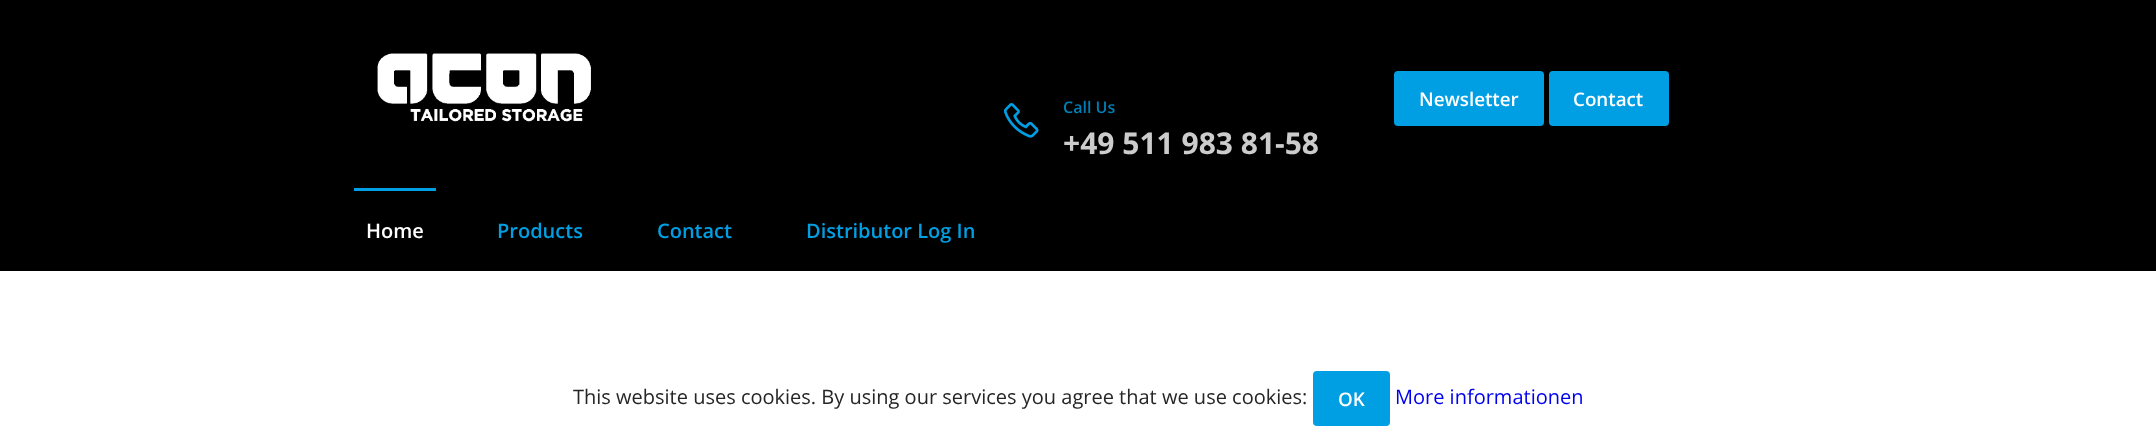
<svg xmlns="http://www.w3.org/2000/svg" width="2156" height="426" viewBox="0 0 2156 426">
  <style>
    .t1 { font: 600 16px Open Sans; fill: #007fb6; }
    .t2 { font: bold 30px Open Sans; fill: #ccc; }
    .t3 { font: 600 18.75px Open Sans; fill: #fff; }
    .t4 { font: 600 20px Open Sans; fill: #fff; }
    .t5 { font: 600 20px Open Sans; fill: #009fe3; }
    .t6 { font: 20px Open Sans; fill: #262626; }
    .t7 { font: 20px Open Sans; fill: #00e; }
  </style>
  <rect width="100%" height="100%" fill="#fff"/>
  <rect x="0" y="0" width="2156" height="271" fill="#000"/>
  <image x="377" y="53" width="214" height="69" href="images/1.png"/>
  <image x="1003" y="103" width="36" height="35" href="images/2.png"/>
  <text x="1063" y="113" class="t1">Call Us</text>
  <text x="1063" y="154" class="t2">+49 511 983 81-58</text>
  <rect x="1394" y="71" width="150" height="55" rx="4" fill="#009fe3"/>
  <text x="1419" y="106" class="t3">Newsletter</text>
  <rect x="1549" y="71" width="120" height="55" rx="4" fill="#009fe3"/>
  <text x="1573" y="106" class="t3">Contact</text>
  <rect x="354" y="188" width="82" height="3" fill="#009fe3"/>
  <text x="366" y="238" class="t4">Home</text>
  <text x="497" y="238" class="t5">Products</text>
  <text x="657" y="238" class="t5">Contact</text>
  <text x="806" y="238" class="t5">Distributor Log In</text>
  <text x="573" y="404" class="t6">This website uses cookies. By using our services you agree that we use cookies:</text>
  <rect x="1313" y="371" width="77" height="55" rx="4" fill="#009fe3"/>
  <text x="1338" y="406" class="t3">OK</text>
  <text x="1395" y="404" class="t7">More informationen</text>
</svg>
